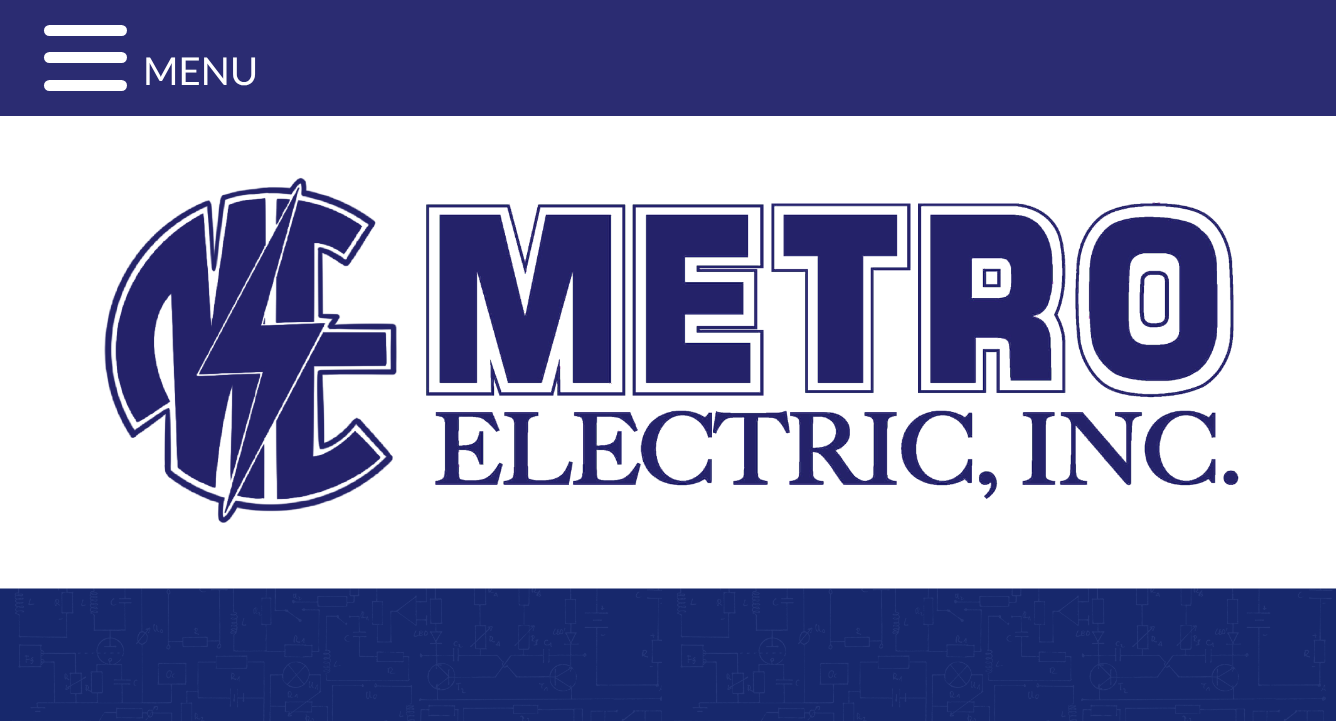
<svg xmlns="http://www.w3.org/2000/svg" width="1336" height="721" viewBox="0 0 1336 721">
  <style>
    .t1 { font: 38.5px Lato; fill: #fff; }
  </style>
  <rect width="100%" height="100%" fill="#fff"/>
  <rect x="0" y="0" width="1336" height="116" fill="#2b2c72"/>
  <rect x="44" y="25" width="83" height="11" rx="5.5" fill="#fff"/>
  <rect x="44" y="52" width="83" height="11" rx="5.5" fill="#fff"/>
  <rect x="44" y="80" width="83" height="11" rx="5.5" fill="#fff"/>
  <text x="143" y="85" class="t1">MENU</text>
  <image x="104" y="177" width="1135" height="346" href="images/1.png"/>
  <image x="0" y="588" width="1336" height="133" href="images/2.png"/>
</svg>
